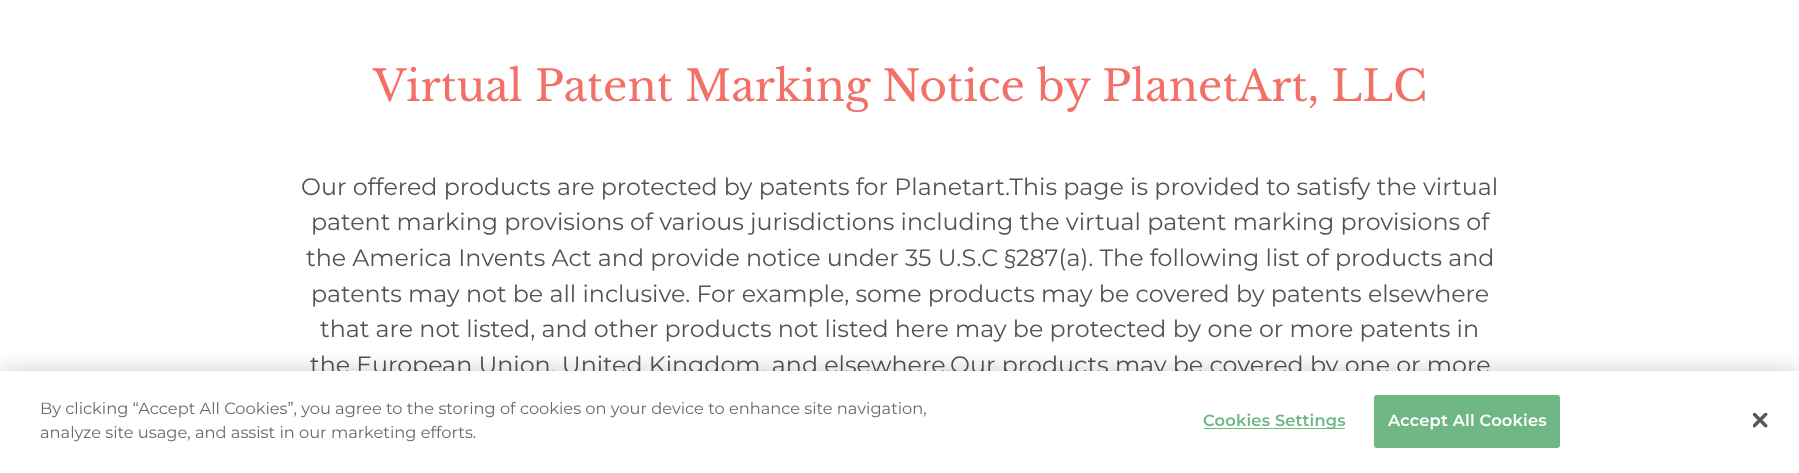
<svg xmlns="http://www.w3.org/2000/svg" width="1799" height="473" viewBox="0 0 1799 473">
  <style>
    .t1 { font: 42.5px Libre Baskerville; fill: #f27067; }
    .t2 { font: 23.75px Montserrat; fill: #545353; }
    .t3 { font: 16.25px Montserrat; fill: #696969; }
    .t4 { font: 600 16.25px Montserrat; letter-spacing: 0.2px; fill: #6fb886; }
    .t5 { font: 600 16.25px Montserrat; letter-spacing: 0.2px; fill: #fff; }
  </style>
  <rect width="100%" height="100%" fill="#fff"/>
  <text x="373" y="101" class="t1">Virtual Patent Marking Notice by PlanetArt, LLC</text>
  <text x="301" y="195" class="t2">Our offered products are protected by patents for Planetart.This page is provided to satisfy the virtual</text>
  <text x="311" y="230" class="t2">patent marking provisions of various jurisdictions including the virtual patent marking provisions of</text>
  <text x="306" y="266" class="t2">the America Invents Act and provide notice under 35 U.S.C §287(a). The following list of products and</text>
  <text x="311" y="302" class="t2">patents may not be all inclusive. For example, some products may be covered by patents elsewhere</text>
  <text x="320" y="337" class="t2">that are not listed, and other products not listed here may be protected by one or more patents in</text>
  <text x="310" y="373" class="t2">the European Union, United Kingdom, and elsewhere.Our products may be covered by one or more</text>
  <rect x="0" y="371" width="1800" height="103" fill="#00000033" filter="blur(11px)"/>
  <rect x="0" y="371" width="1799" height="102" fill="#fff"/>
  <text x="40" y="414" class="t3">By clicking “Accept All Cookies”, you agree to the storing of cookies on your device to enhance site navigation,</text>
  <text x="40" y="438" class="t3">analyze site usage, and assist in our marketing efforts.</text>
  <rect x="1204" y="428" width="141" height="1" fill="#6fb886"/>
  <text x="1203" y="426" class="t4">Cookies Settings</text>
  <rect x="1374.5" y="395.5" width="185" height="52" rx="2" fill="#6fb886" stroke="#6fb886"/>
  <text x="1388" y="426" class="t5">Accept All Cookies</text>
  <image x="1753" y="413" width="15" height="15" href="images/1.png"/>
</svg>
